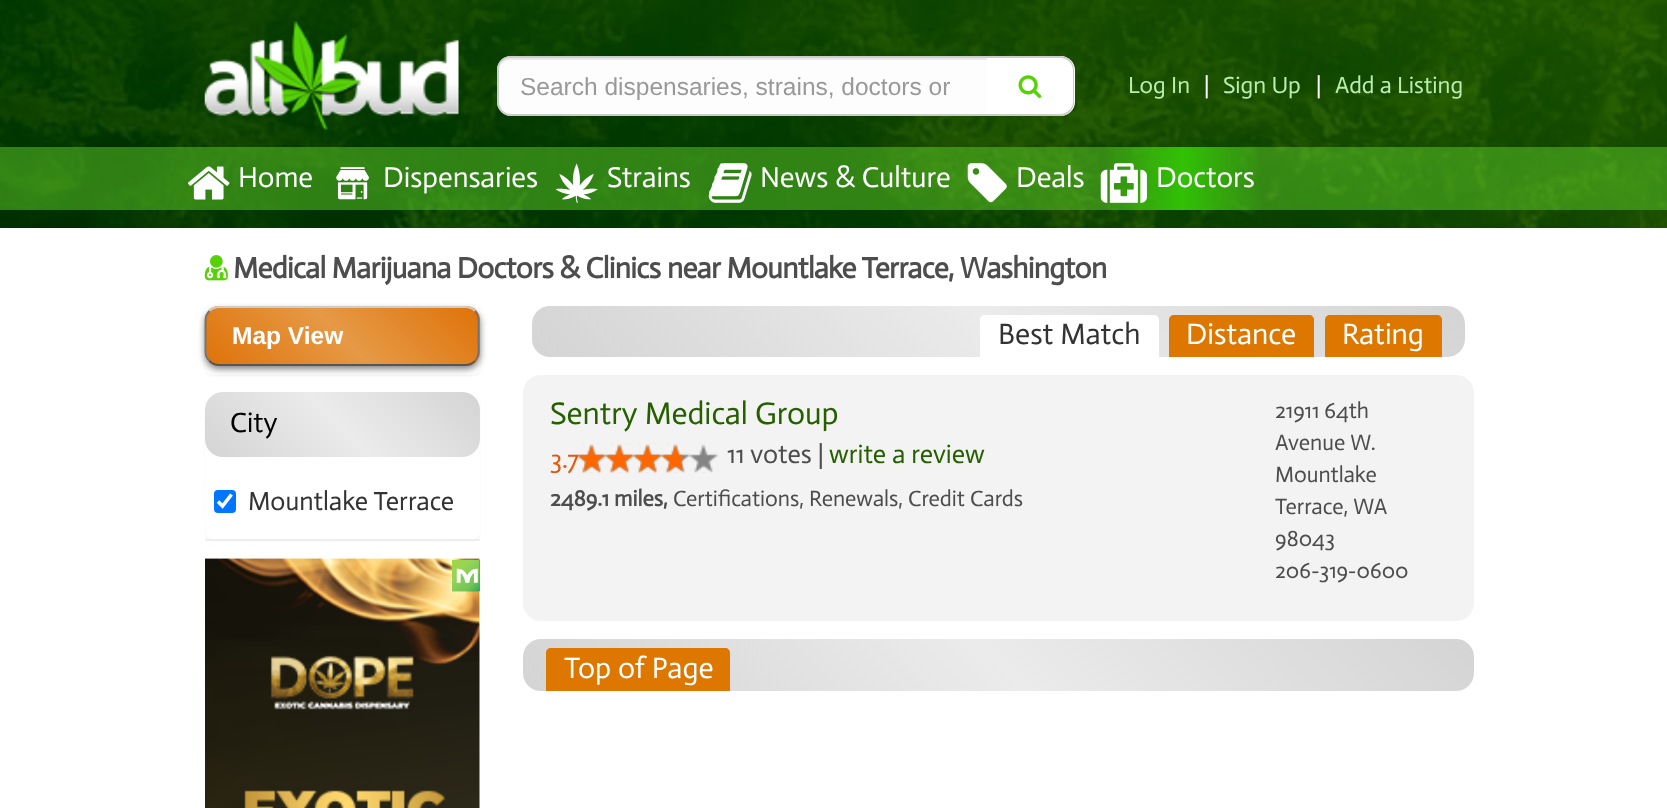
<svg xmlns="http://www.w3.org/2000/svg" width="1667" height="808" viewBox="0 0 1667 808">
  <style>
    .t1 { font: 24.5px Liberation Sans; fill: #999; }
    .t2 { font: 23.5px Actor; fill: #b7eeb3; }
    .t3 { font: 23.5px Actor; fill: #fff; }
    .t4 { font: 29px Actor; fill: #fff; }
    .t5 { font: bold 29.5px Actor; letter-spacing: -0.6px; fill: #4d4d4d; }
    .t6 { font: bold 24.5px Liberation Sans; fill: #fff; }
    .t7 { font: 28px Actor; fill: #000; }
    .t8 { font: 26.25px Actor; fill: #333; }
    .t9 { font: 29.75px Actor; fill: #333; }
    .t10 { font: 29.75px Actor; fill: #fff; }
    .t11 { font: 31.5px Actor; fill: #265f00; }
    .t12 { font: 26.25px Actor; fill: #e6560b; }
    .t13 { font: 26.25px Actor; fill: #4d4d4d; }
    .t14 { font: 26.25px Actor; fill: #265f00; }
    .t15 { font: bold 22.25px Actor; fill: #4d4d4d; }
    .t16 { font: 22.25px Actor; fill: #4d4d4d; }
  </style>
  <defs>
    <linearGradient id="g1" gradientUnits="userSpaceOnUse" x1="1101" y1="179" x2="1264" y2="179"><stop offset="0" stop-color="#31c105" stop-opacity="0"/><stop offset="0.5" stop-color="#31c105"/><stop offset="1" stop-color="#31c105" stop-opacity="0"/></linearGradient>
    <clipPath id="clip1"><rect x="205" y="306" width="275" height="60" rx="14"/></clipPath>
    <linearGradient id="g2" gradientUnits="userSpaceOnUse" x1="260" y1="362" x2="424" y2="198"><stop offset="0" stop-color="#df7309"/><stop offset="0.5" stop-color="#e69946"/><stop offset="1" stop-color="#df7309"/></linearGradient>
    <linearGradient id="g3" gradientUnits="userSpaceOnUse" x1="-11" y1="418" x2="153" y2="254"><stop offset="0" stop-color="#df7309"/><stop offset="0.5" stop-color="#e69946"/><stop offset="1" stop-color="#df7309"/></linearGradient>
    <linearGradient id="g4" gradientUnits="userSpaceOnUse" x1="260" y1="418" x2="424" y2="254"><stop offset="0" stop-color="#df7309"/><stop offset="0.5" stop-color="#e69946"/><stop offset="1" stop-color="#df7309"/></linearGradient>
    <linearGradient id="g5" gradientUnits="userSpaceOnUse" x1="532" y1="418" x2="695" y2="254"><stop offset="0" stop-color="#df7309"/><stop offset="0.5" stop-color="#e69946"/><stop offset="1" stop-color="#df7309"/></linearGradient>
    <linearGradient id="g6" gradientUnits="userSpaceOnUse" x1="260" y1="474" x2="424" y2="310"><stop offset="0" stop-color="#df7309"/><stop offset="0.5" stop-color="#e69946"/><stop offset="1" stop-color="#df7309"/></linearGradient>
    <linearGradient id="g7" gradientUnits="userSpaceOnUse" x1="257" y1="509" x2="427" y2="340"><stop offset="0" stop-color="#d4d4d4"/><stop offset="0.5" stop-color="#ebebeb"/><stop offset="1" stop-color="#d4d4d4"/></linearGradient>
    <linearGradient id="g8" gradientUnits="userSpaceOnUse" x1="753" y1="578" x2="1244" y2="86"><stop offset="0" stop-color="#d4d4d4"/><stop offset="0.5" stop-color="#ebebeb"/><stop offset="1" stop-color="#d4d4d4"/></linearGradient>
    <linearGradient id="g9" gradientUnits="userSpaceOnUse" x1="748" y1="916" x2="1249" y2="414"><stop offset="0" stop-color="#d4d4d4"/><stop offset="0.5" stop-color="#ebebeb"/><stop offset="1" stop-color="#d4d4d4"/></linearGradient>
  </defs>
  <rect width="100%" height="100%" fill="#fff"/>
  <image x="0" y="0" width="1667" height="228" href="images/1.png"/>
  <image x="204" y="21" width="255" height="109" href="images/2.png"/>
  <path d="M511 56H989V116H511C503.5 116 497 109.5 497 102V70C497 62.5 503.5 56 511 56Z" fill="#fdfdfd"/>
  <path d="M511 60H989V58H509C502 60 499 66 499 72C499 65 504 60 511 60Z" fill="#eaeaea"/>
  <path d="M511 56H989V116H511C503 116 497 109 497 102V70C497 62 503 56 511 56ZM511 58H989V114H511C504 114 499 108 499 102V70C499 63 504 58 511 58Z" fill="#ccc" fill-rule="evenodd"/>
  <text x="520" y="95" class="t1">Search dispensaries, strains, doctors or</text>
  <path d="M987 56H1061C1068.5 56 1075 62.5 1075 70V102C1075 109.5 1068.5 116 1061 116H987Z" fill="#fff"/>
  <path d="M987 56H1060C1068 56 1074 62 1074 70V102C1074 109 1068 116 1060 116H987ZM987 58H1060C1067 58 1073 63 1073 70V102C1073 108 1067 114 1060 114H987Z" fill="#ccc" fill-rule="evenodd"/>
  <image x="1018" y="75" width="24" height="23" href="images/3.png"/>
  <text x="1128" y="93" class="t2">Log In</text>
  <text x="1204" y="93" class="t3">|</text>
  <text x="1223" y="93" class="t2">Sign Up</text>
  <text x="1316" y="93" class="t3">|</text>
  <text x="1335" y="93" class="t2">Add a Listing</text>
  <rect x="0" y="147" width="1667" height="63" fill="#5ecd2780"/>
  <image x="188" y="166" width="42" height="34" href="images/4.png"/>
  <text x="238" y="187" class="t4">Home</text>
  <image x="336" y="167" width="33" height="33" href="images/5.png"/>
  <text x="383" y="187" class="t4">Dispensaries</text>
  <image x="555" y="163" width="43" height="40" href="images/6.png"/>
  <text x="607" y="187" class="t4">Strains</text>
  <image x="708" y="163" width="44" height="40" href="images/7.png"/>
  <text x="760" y="187" class="t4">News &amp; Culture</text>
  <image x="967" y="163" width="40" height="40" href="images/8.png"/>
  <text x="1016" y="187" class="t4">Deals</text>
  <rect x="1105" y="147" width="155" height="63" fill="url(#g1)"/>
  <image x="1100" y="163" width="47" height="40" href="images/9.png"/>
  <text x="1156" y="187" class="t4">Doctors</text>
  <image x="204" y="255" width="24" height="26" href="images/10.png"/>
  <text x="233" y="278" class="t5">Medical Marijuana Doctors &amp; Clinics</text>
  <text x="667" y="278" class="t5">near Mountlake Terrace, Washington</text>
  <rect x="205" y="308" width="275" height="68" rx="7" fill="#0000000d" filter="blur(1px)"/>
  <rect x="205" y="306" width="275" height="69" rx="7" fill="#fff"/>
  <rect x="205" y="310" width="275" height="59" rx="14" fill="#00000080" filter="blur(3.5px)"/>
  <g clip-path="url(#clip1)">
    <rect x="207" y="306" width="271" height="2" fill="url(#g2)"/>
    <rect x="205" y="308" width="2" height="56" fill="url(#g3)"/>
    <rect x="207" y="308" width="271" height="56" fill="url(#g4)"/>
    <rect x="478" y="308" width="2" height="56" fill="url(#g5)"/>
    <rect x="207" y="364" width="271" height="2" fill="url(#g6)"/>
  </g>
  <path d="M209.5 311C212 308.5 215.5 307 219 307H465.5C469 307 472.5 308.5 475 311" fill="none" stroke="#ccc" stroke-width="1.8"/>
  <path d="M475 311C477 313.5 478.5 317 478.5 320V352C478.5 355 477 358.5 475 361" fill="none" stroke="#737373" stroke-width="1.8"/>
  <path d="M475 361C472.5 363.5 469 365 465.5 365H219C215.5 365 212 363.5 209.5 361" fill="none" stroke="#565656" stroke-width="1.8"/>
  <path d="M209.5 361C207 358.5 205.5 355 205.5 352V320C205.5 317 207 313.5 209.5 311" fill="none" stroke="#737373" stroke-width="1.8"/>
  <text x="232" y="344" class="t6">Map View</text>
  <rect x="205" y="394" width="275" height="147" rx="7" fill="#0000000d" filter="blur(1px)"/>
  <rect x="205" y="392" width="275" height="147" rx="7" fill="#fff"/>
  <rect x="205" y="392" width="275" height="65" rx="18" fill="url(#g7)"/>
  <text x="230" y="432" class="t7">City</text>
  <rect x="214" y="490" width="22" height="23" rx="4" fill="#0075ff"/>
  <path d="M218 501.5L222.5 506L231.5 494.5" fill="none" stroke="#fff" stroke-width="3.6"/>
  <text x="248" y="510" class="t8">Mountlake Terrace</text>
  <rect x="205" y="539" width="275" height="2" fill="#eee"/>
  <image x="205" y="558" width="275" height="250" href="images/11.png"/>
  <rect x="532" y="306" width="933" height="51" rx="18" fill="url(#g8)"/>
  <path d="M985 315H1154C1157 315 1159 317 1159 320V357H980V320C980 317 982 315 985 315Z" fill="#fff"/>
  <text x="998" y="344" class="t9">Best Match</text>
  <path d="M1174 315H1309C1312 315 1314 317 1314 320V357H1169V320C1169 317 1171 315 1174 315Z" fill="#d70"/>
  <text x="1186" y="344" class="t10">Distance</text>
  <path d="M1330 315H1437C1440 315 1442 317 1442 320V357H1325V320C1325 317 1327 315 1330 315Z" fill="#d70"/>
  <text x="1342" y="344" class="t10">Rating</text>
  <rect x="523" y="375" width="951" height="246" rx="18" fill="#f3f3f3"/>
  <text x="550" y="424" class="t11">Sentry Medical Group</text>
  <text x="550" y="468" class="t12">3.7</text>
  <image x="577" y="444" width="141" height="29" href="images/12.png"/>
  <image x="577" y="444" width="106" height="29" href="images/13.png"/>
  <text x="727" y="463" class="t13">11 votes |</text>
  <text x="829" y="463" class="t14">write a review</text>
  <text x="550" y="506" class="t15">2489.1 miles,</text>
  <text x="673" y="506" class="t16">Certifications, Renewals, Credit Cards</text>
  <text x="1275" y="418" class="t16">21911 64th</text>
  <text x="1275" y="450" class="t16">Avenue W.</text>
  <text x="1275" y="482" class="t16">Mountlake</text>
  <text x="1275" y="514" class="t16">Terrace, WA</text>
  <text x="1275" y="546" class="t16">98043</text>
  <text x="1275" y="578" class="t16">206-319-0600</text>
  <rect x="523" y="639" width="951" height="52" rx="18" fill="url(#g9)"/>
  <path d="M551 648H725C728 648 730 650 730 653V691H546V653C546 650 548 648 551 648Z" fill="#d70"/>
  <text x="564" y="678" class="t10">Top of Page</text>
</svg>
